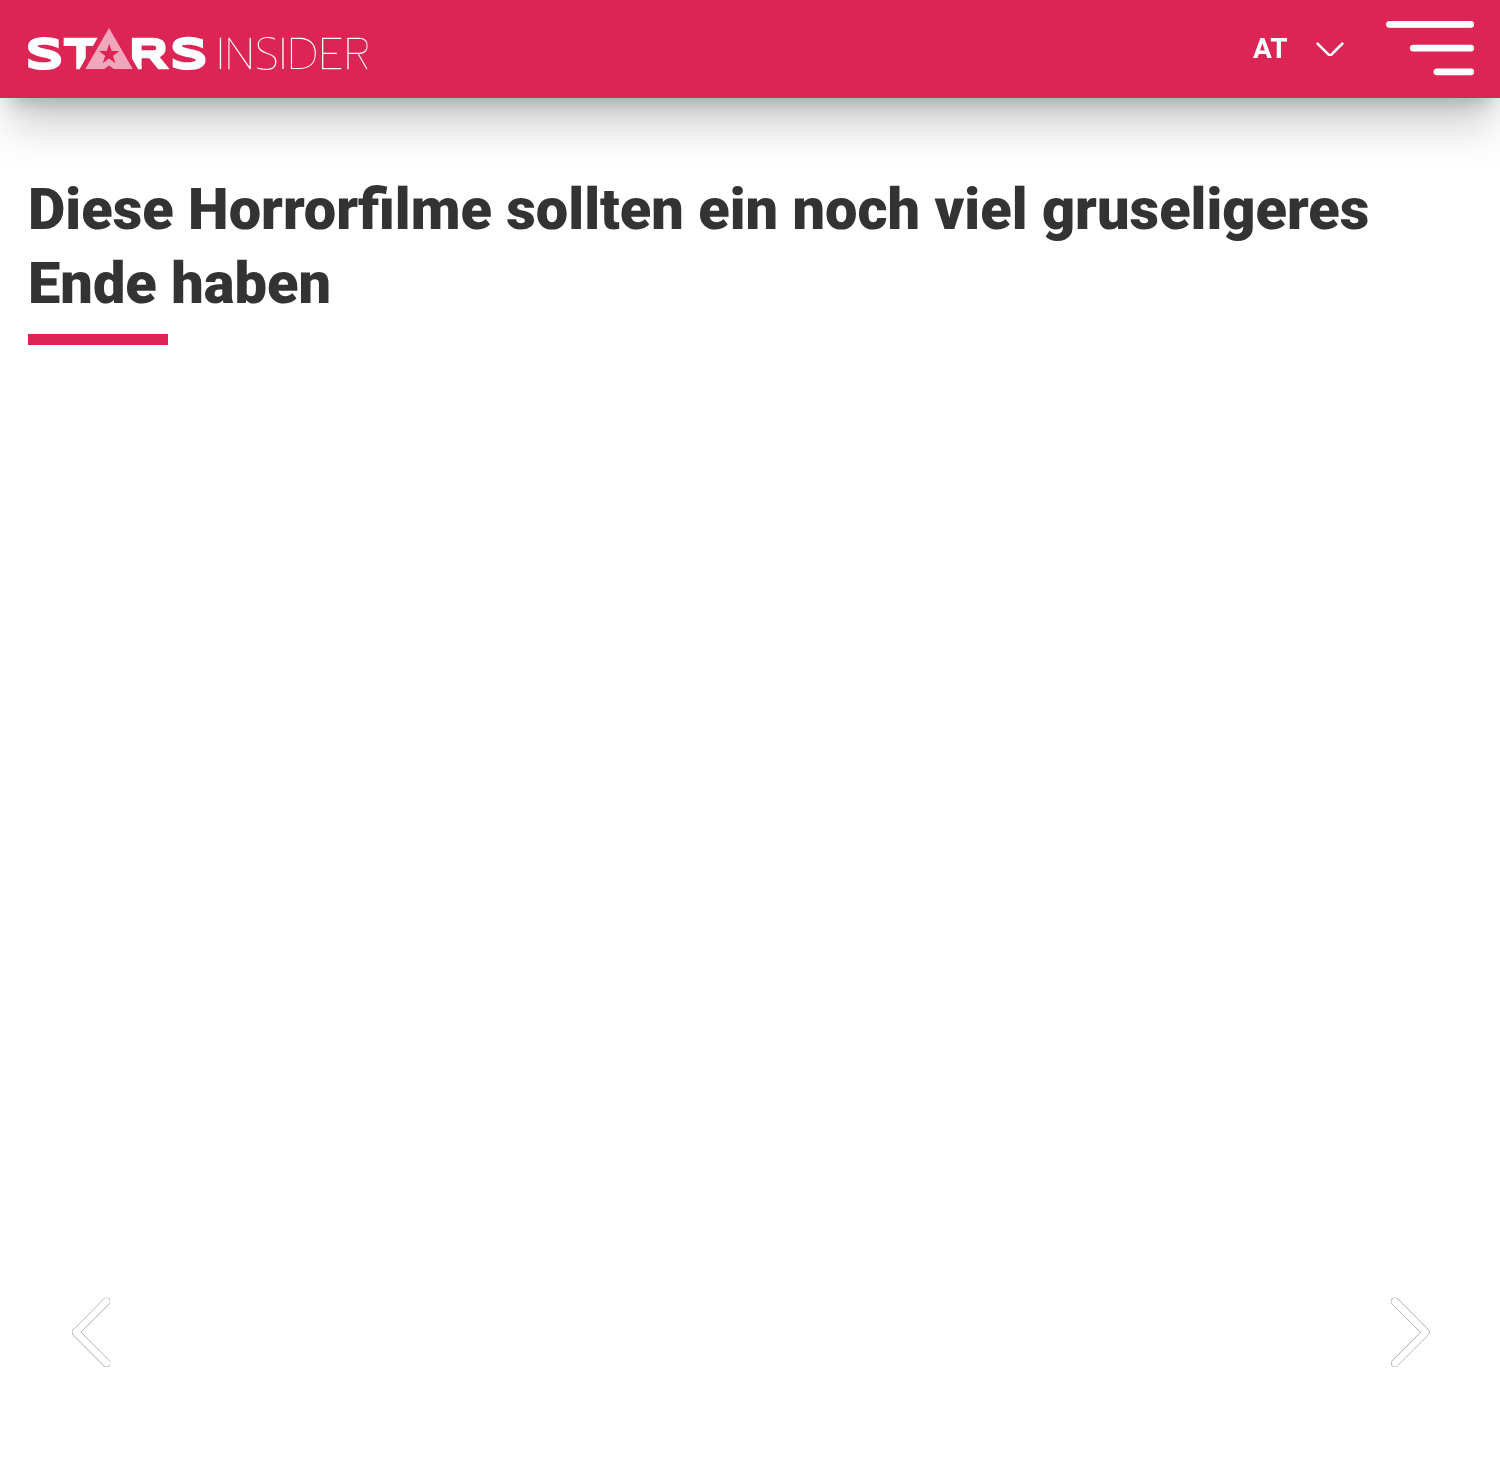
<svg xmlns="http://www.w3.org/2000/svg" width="1500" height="1458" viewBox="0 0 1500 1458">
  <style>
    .t1 { font: bold 28px Roboto; fill: #fff; }
    .t2 { font: 900 57.75px Roboto; fill: #333; }
  </style>
  <rect width="100%" height="100%" fill="#fff"/>
  <rect x="11" y="25" width="1480" height="77" fill="#00000033" filter="blur(9px)"/>
  <rect x="9" y="44" width="1484" height="80" fill="#00000033" filter="blur(22px)"/>
  <rect x="0" y="0" width="1500" height="98" fill="#dc2555"/>
  <image x="28" y="28" width="340" height="42" href="images/1.png"/>
  <text x="1253" y="58" class="t1">AT</text>
  <image x="1316" y="42" width="28" height="14" href="images/2.png"/>
  <image x="1386" y="21" width="88" height="55" href="images/3.png"/>
  <text x="28" y="229" class="t2">Diese Horrorfilme sollten ein noch viel gruseligeres</text>
  <text x="28" y="303" class="t2">Ende haben</text>
  <rect x="28" y="334" width="140" height="11" fill="#dc2555"/>
  <image x="71" y="1297" width="40" height="70" href="images/4.png"/>
  <image x="1391" y="1297" width="39" height="70" href="images/5.png"/>
</svg>
